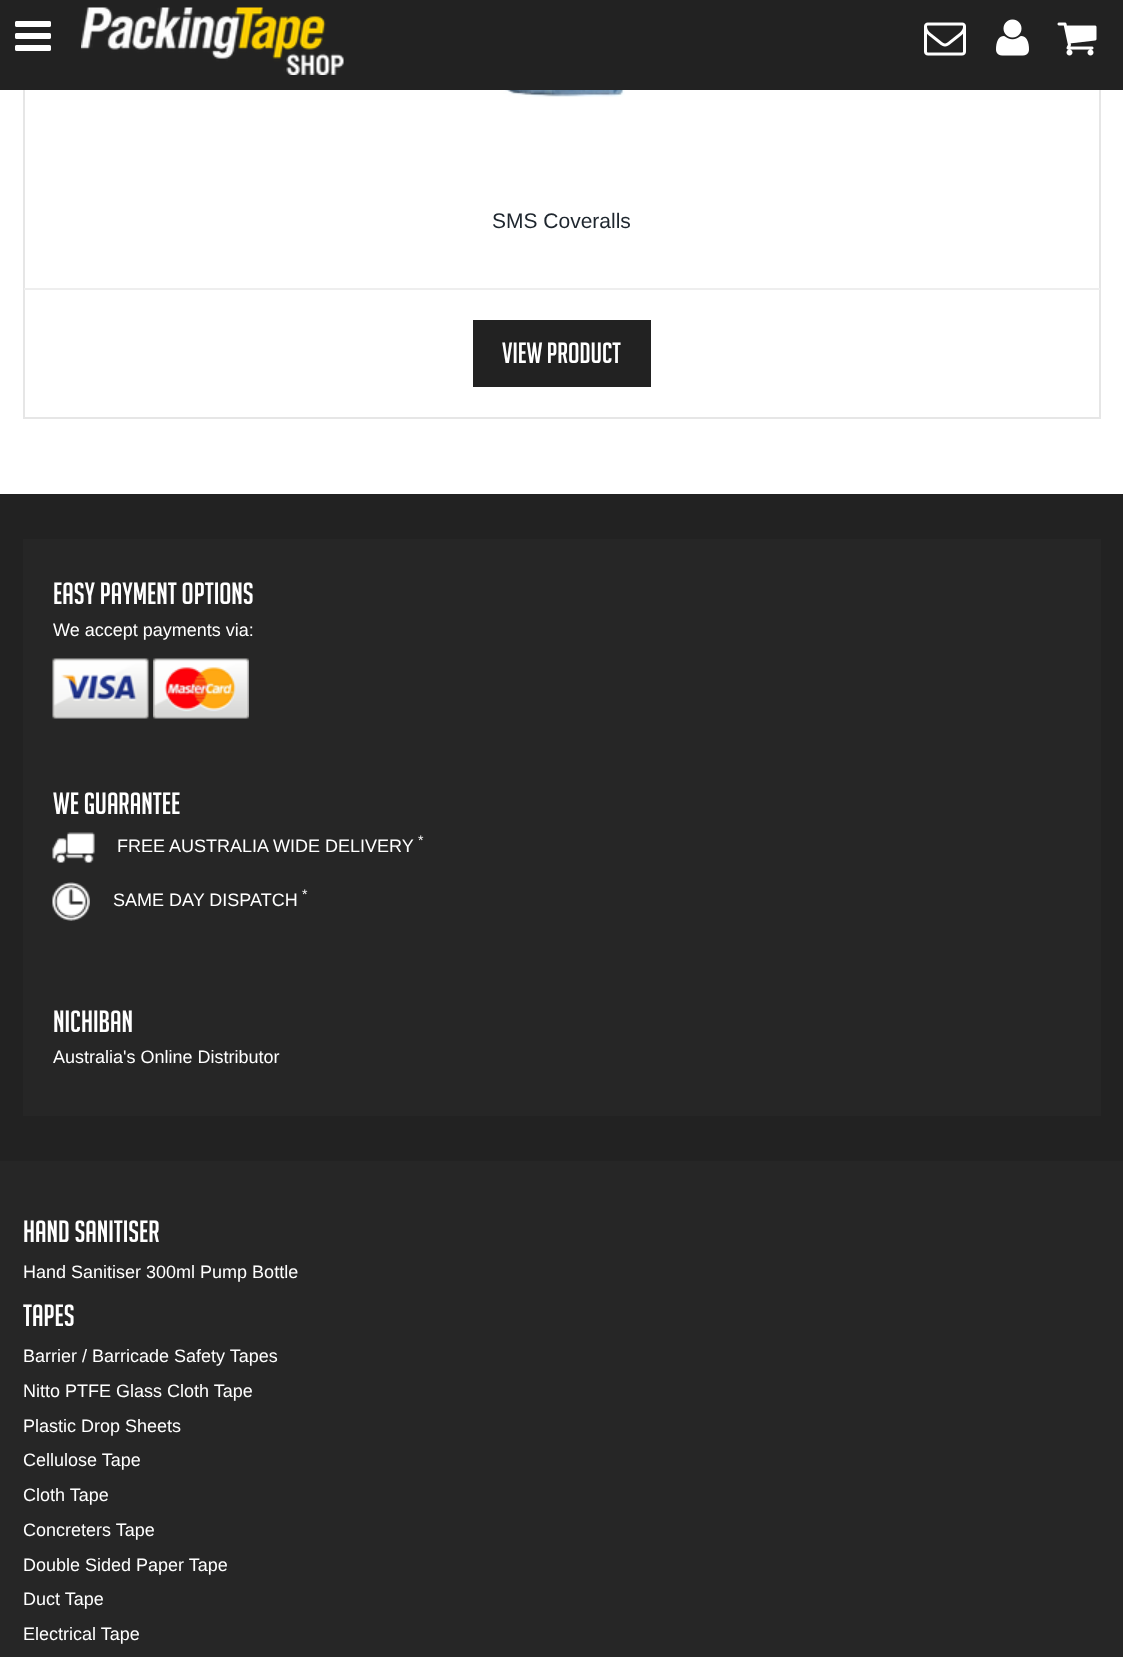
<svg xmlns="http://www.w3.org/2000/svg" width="1123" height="1657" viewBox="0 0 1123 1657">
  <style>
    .t1 { font: 21px Liberation Sans; fill: #1e262e; }
    .t2 { font: 28.5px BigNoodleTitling; fill: #fff; }
    .t3 { font: 30px BigNoodleTitling; fill: #fff; }
    .t4 { font: 18px Liberation Sans; fill: #fff; }
    .t5 { font: 14px Liberation Sans; fill: #fff; }
  </style>
  <rect width="100%" height="100%" fill="#fff"/>
  <rect x="24" y="-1" width="1076" height="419" fill="none" stroke="#e6e6e6" stroke-width="2"/>
  <rect x="0" y="0" width="1123" height="90" fill="#222"/>
  <image x="15" y="21" width="36" height="30" href="images/1.png"/>
  <image x="81" y="7" width="263" height="68" href="images/2.png"/>
  <image x="924" y="22" width="42" height="34" href="images/3.png"/>
  <image x="996" y="19" width="33" height="37" href="images/4.png"/>
  <image x="1057" y="22" width="40" height="34" href="images/5.png"/>
  <image x="501" y="90" width="124" height="7" href="images/6.png"/>
  <text x="492" y="228" class="t1">SMS Coveralls</text>
  <rect x="24" y="288" width="1076" height="2" fill="#eee"/>
  <rect x="473" y="320" width="178" height="67" fill="#222"/>
  <text x="502" y="363" class="t2">View Product</text>
  <rect x="0" y="494" width="1123" height="667" fill="#222"/>
  <rect x="23" y="539" width="1078" height="577" fill="#262626"/>
  <text x="53" y="604" class="t3">Easy Payment Options</text>
  <text x="53" y="636" class="t4">We accept payments via:</text>
  <image x="52" y="658" width="97" height="61" href="images/7.png"/>
  <image x="153" y="658" width="96" height="61" href="images/8.png"/>
  <text x="53" y="814" class="t3">We Guarantee</text>
  <image x="52" y="832" width="43" height="31" href="images/9.png"/>
  <text x="418" y="845" class="t5">*</text>
  <text x="117" y="852" class="t4">FREE AUSTRALIA WIDE DELIVERY</text>
  <image x="52" y="882" width="38" height="39" href="images/10.png"/>
  <text x="302" y="899" class="t5">*</text>
  <text x="113" y="906" class="t4">SAME DAY DISPATCH</text>
  <text x="53" y="1032" class="t3">Nichiban</text>
  <text x="53" y="1063" class="t4">Australia's Online Distributor</text>
  <rect x="0" y="1161" width="1123" height="496" fill="#262626"/>
  <text x="23" y="1242" class="t3">Hand Sanitiser</text>
  <text x="23" y="1278" class="t4">Hand Sanitiser 300ml Pump Bottle</text>
  <text x="23" y="1326" class="t3">Tapes</text>
  <text x="23" y="1362" class="t4">Barrier / Barricade Safety Tapes</text>
  <text x="23" y="1397" class="t4">Nitto PTFE Glass Cloth Tape</text>
  <text x="23" y="1432" class="t4">Plastic Drop Sheets</text>
  <text x="23" y="1466" class="t4">Cellulose Tape</text>
  <text x="23" y="1501" class="t4">Cloth Tape</text>
  <text x="23" y="1536" class="t4">Concreters Tape</text>
  <text x="23" y="1571" class="t4">Double Sided Paper Tape</text>
  <text x="23" y="1605" class="t4">Duct Tape</text>
  <text x="23" y="1640" class="t4">Electrical Tape</text>
</svg>
